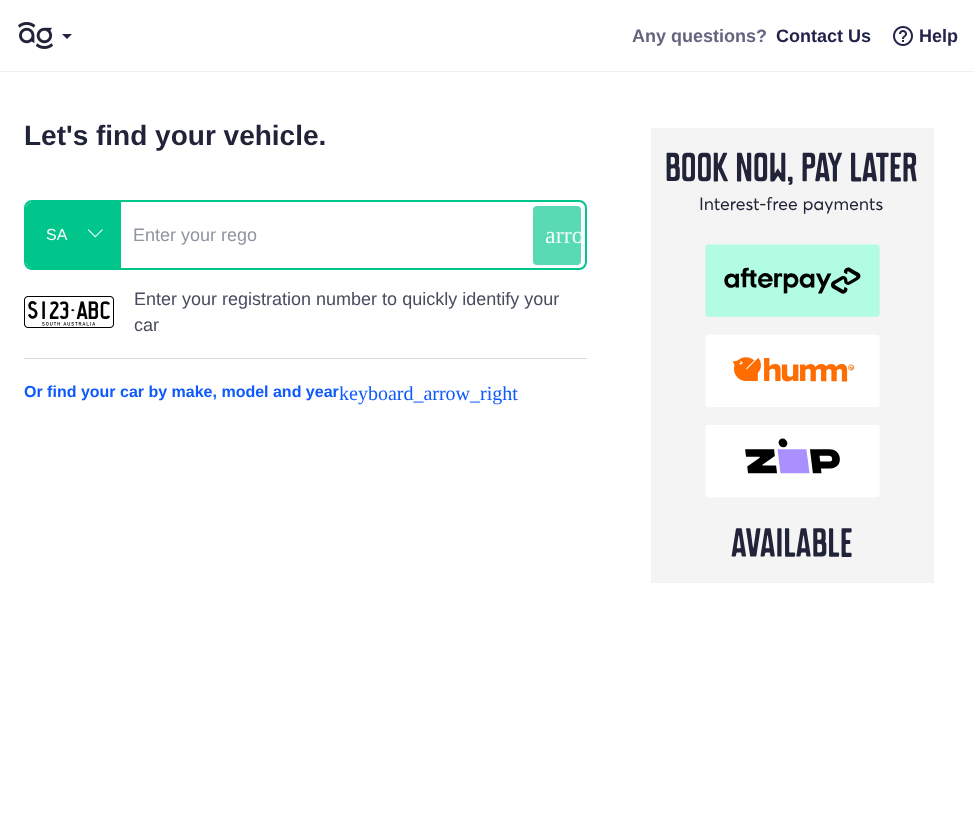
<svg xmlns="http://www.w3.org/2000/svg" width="974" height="836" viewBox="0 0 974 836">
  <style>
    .t1 { font: bold 18px Liberation Sans; fill: #646580; }
    .t2 { font: bold 18px Liberation Sans; fill: #21234a; }
    .t3 { font: bold 28px Liberation Sans; fill: #212338; }
    .t4 { font: 16px Liberation Sans; fill: #fff; }
    .t5 { font: 18px Liberation Sans; fill: #8f95a1; }
    .t6 { font: 24px Liberation Serif; fill: #effbf8; }
    .t7 { font: 18px Liberation Sans; fill: #484c5f; }
    .t8 { font: bold 16px Liberation Sans; fill: #0d59fc; }
    .t9 { font: 20px Liberation Serif; fill: #0d59fc; }
  </style>
  <rect width="100%" height="100%" fill="#fff"/>
  <rect x="0" y="71" width="974" height="1" fill="#eef0f2"/>
  <image x="18" y="22" width="35" height="27" href="images/1.png"/>
  <path d="M62 34L67 39L72 34Z" fill="#21234a"/>
  <text x="632" y="42" class="t1">Any questions?</text>
  <text x="776" y="42" class="t2">Contact Us</text>
  <image x="893" y="26" width="20" height="20" href="images/2.png"/>
  <text x="919" y="42" class="t2">Help</text>
  <text x="24" y="145" class="t3">Let's find your vehicle.</text>
  <rect x="25" y="201" width="561" height="68" rx="7" fill="none" stroke="#01c68c" stroke-width="2"/>
  <path d="M32 204H119V266H32C30 266 28 264 28 262V208C28 206 30 204 32 204Z" fill="#01c68c" stroke="#01c68c" stroke-width="4"/>
  <text x="46" y="240" class="t4">SA</text>
  <image x="87" y="229" width="16" height="9" href="images/3.png"/>
  <text x="133" y="241" class="t5">Enter your rego</text>
  <rect x="533" y="206" width="48" height="59" rx="4" fill="#5adab4"/>
  <text x="545" y="243" class="t6">arro</text>
  <image x="24" y="296" width="90" height="32" href="images/4.png"/>
  <text x="134" y="305" class="t7">Enter your registration number to quickly identify your</text>
  <text x="134" y="331" class="t7">car</text>
  <rect x="24" y="358" width="563" height="1" fill="#d4d9dd"/>
  <text x="24" y="397" class="t8">Or find your car by make, model and year</text>
  <text x="339" y="400" class="t9">keyboard_arrow_right</text>
  <image x="651" y="128" width="283" height="455" href="images/5.png"/>
</svg>
